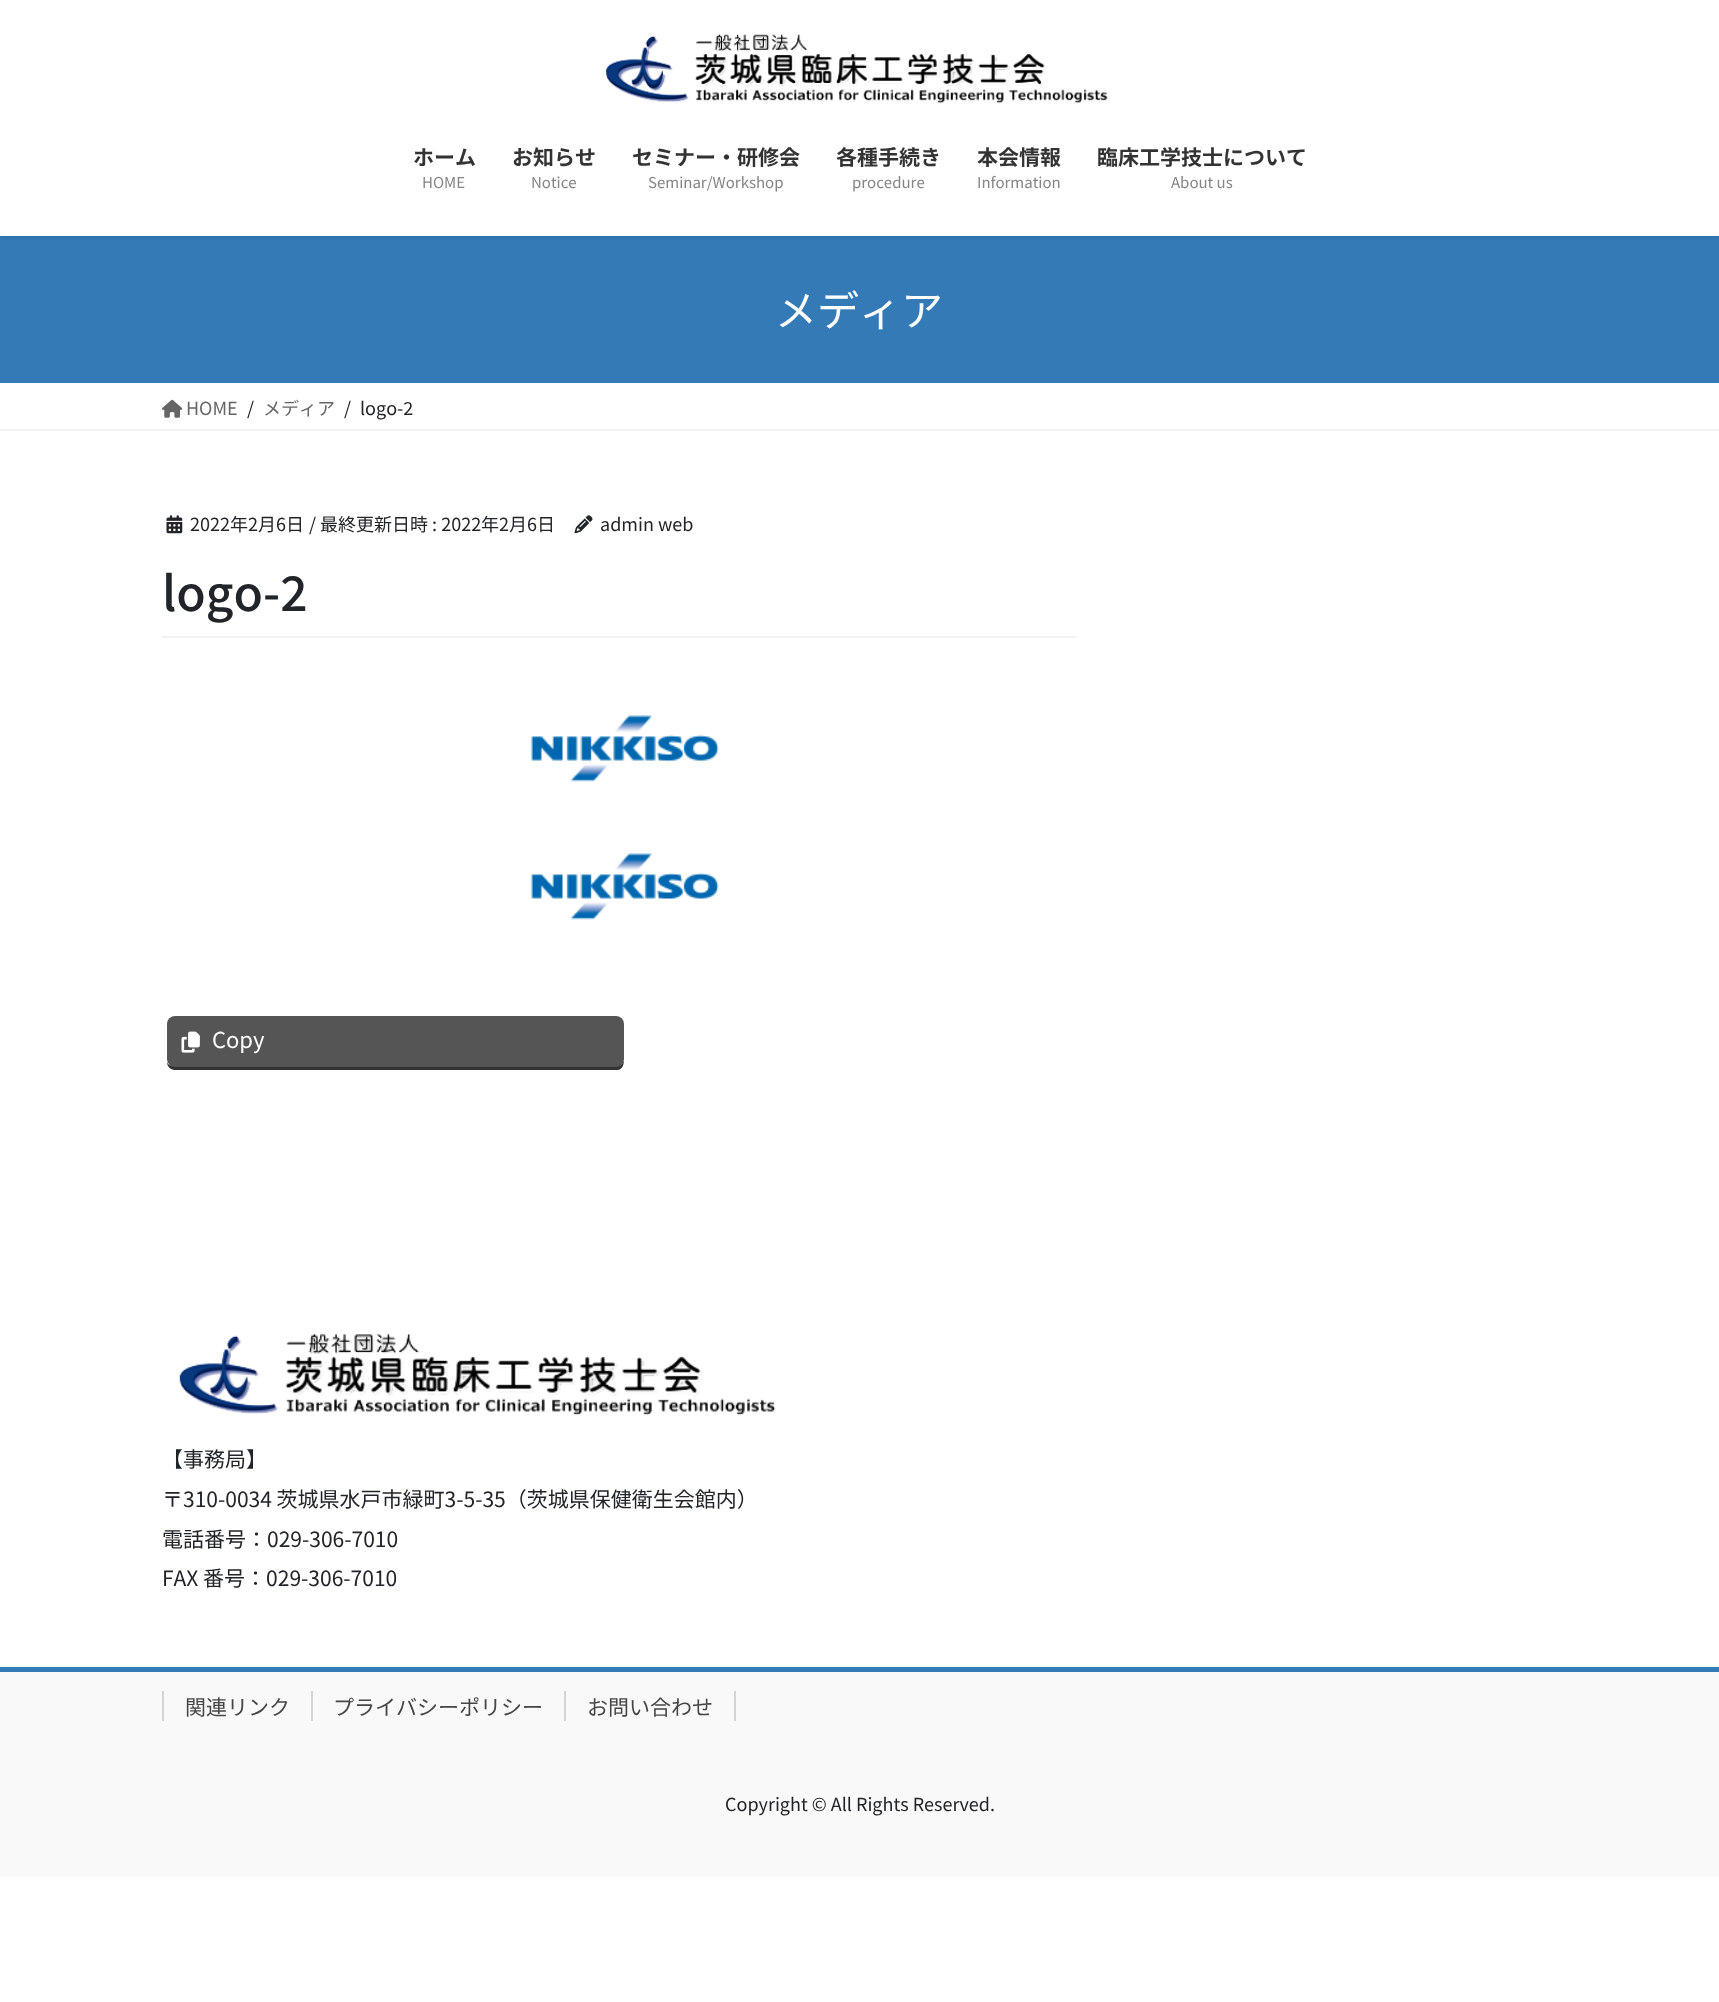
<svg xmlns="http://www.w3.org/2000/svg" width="1719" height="2002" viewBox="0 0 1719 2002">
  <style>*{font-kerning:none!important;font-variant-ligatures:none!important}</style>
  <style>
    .t1 { font: bold 21px Noto Sans JP; fill: #333; }
    .t2 { font: 15px Noto Sans JP; fill: #858585; }
    .t3 { font: 42px Noto Sans JP; fill: #fff; }
    .t4 { font: 18px Noto Sans JP; fill: #666; }
    .t5 { font: 18px Noto Sans JP; fill: #212529; }
    .t6 { font: 500 48px Noto Sans JP; fill: #212529; }
    .t7 { font: 22px Noto Sans JP; fill: #fff; }
    .t8 { font: 21px Noto Sans JP; fill: #212529; }
    .t9 { font: 21px Noto Sans JP; fill: #464646; }
  </style>
  <rect width="100%" height="100%" fill="#fff"/>
  <rect x="0" y="236" width="1719" height="147" fill="#337ab7"/>
  <rect x="0" y="2" width="1719" height="235" fill="#0000001a" filter="blur(2px)"/>
  <rect x="0" y="0" width="1719" height="236" fill="#fff"/>
  <image x="605" y="34" width="503" height="70" href="images/1.png"/>
  <text x="413" y="165" class="t1">ホーム</text>
  <text x="422" y="188" class="t2">HOME</text>
  <text x="512" y="165" class="t1">お知らせ</text>
  <text x="531" y="188" class="t2">Notice</text>
  <text x="632" y="165" class="t1">セミナー・研修会</text>
  <text x="648" y="188" class="t2">Seminar/Workshop</text>
  <text x="836" y="165" class="t1">各種手続き</text>
  <text x="852" y="188" class="t2">procedure</text>
  <text x="977" y="165" class="t1">本会情報</text>
  <text x="977" y="188" class="t2">Information</text>
  <text x="1097" y="165" class="t1">臨床工学技士について</text>
  <text x="1171" y="188" class="t2">About us</text>
  <text x="775" y="326" class="t3">メディア</text>
  <rect x="0" y="429" width="1719" height="2" fill="#f2f2f2"/>
  <image x="162" y="399" width="21" height="19" href="images/2.png"/>
  <text x="186" y="415" class="t4">HOME</text>
  <text x="247" y="415" class="t5">/</text>
  <text x="263" y="415" class="t4">メディア</text>
  <text x="344" y="415" class="t5">/</text>
  <text x="360" y="415" class="t5">logo-2</text>
  <rect x="162" y="636" width="915" height="2" fill="#f2f2f2"/>
  <image x="166" y="515" width="17" height="19" href="images/3.png"/>
  <text x="190" y="531" class="t5">2022年2月6日</text>
  <text x="309" y="531" class="t5">/ 最終更新日時 : 2022年2月6日</text>
  <image x="574" y="515" width="19" height="19" href="images/4.png"/>
  <text x="600" y="531" class="t5">admin web</text>
  <text x="162" y="611" class="t6">logo-2</text>
  <image x="530" y="715" width="189" height="67" href="images/5.png"/>
  <image x="530" y="853" width="189" height="67" href="images/5.png"/>
  <path d="M167 1062C167 1066 170 1070 175 1070H618C623 1069 624 1064 624 1059C624 1063 621 1066 616 1066H174C171 1066 168 1065 167 1062Z" fill="#333"/>
  <rect x="167" y="1016" width="457" height="51" rx="8" fill="#555"/>
  <image x="181" y="1031" width="19" height="22" href="images/6.png"/>
  <text x="212" y="1048" class="t7">Copy</text>
  <image x="179" y="1334" width="597" height="82" href="images/7.png"/>
  <text x="162" y="1467" class="t8">【事務局】</text>
  <text x="162" y="1507" class="t8">〒310-0034 茨城県水戸市緑町3-5-35（茨城県保健衛生会館内）</text>
  <text x="162" y="1547" class="t8">電話番号：029-306-7010</text>
  <text x="162" y="1586" class="t8">FAX 番号：029-306-7010</text>
  <rect x="0" y="1672" width="1719" height="205" fill="#f9f9f9"/>
  <rect x="0" y="1667" width="1719" height="5" fill="#337ab7"/>
  <text x="185" y="1715" class="t9">関連リンク</text>
  <rect x="162" y="1691" width="2" height="30" fill="#d4d4d4"/>
  <text x="333" y="1715" class="t9">プライバシーポリシー</text>
  <rect x="311" y="1691" width="2" height="30" fill="#d4d4d4"/>
  <text x="587" y="1715" class="t9">お問い合わせ</text>
  <rect x="734" y="1691" width="2" height="30" fill="#d4d4d4"/>
  <rect x="564" y="1691" width="2" height="30" fill="#d4d4d4"/>
  <text x="725" y="1811" class="t5">Copyright © All Rights Reserved.</text>
</svg>
